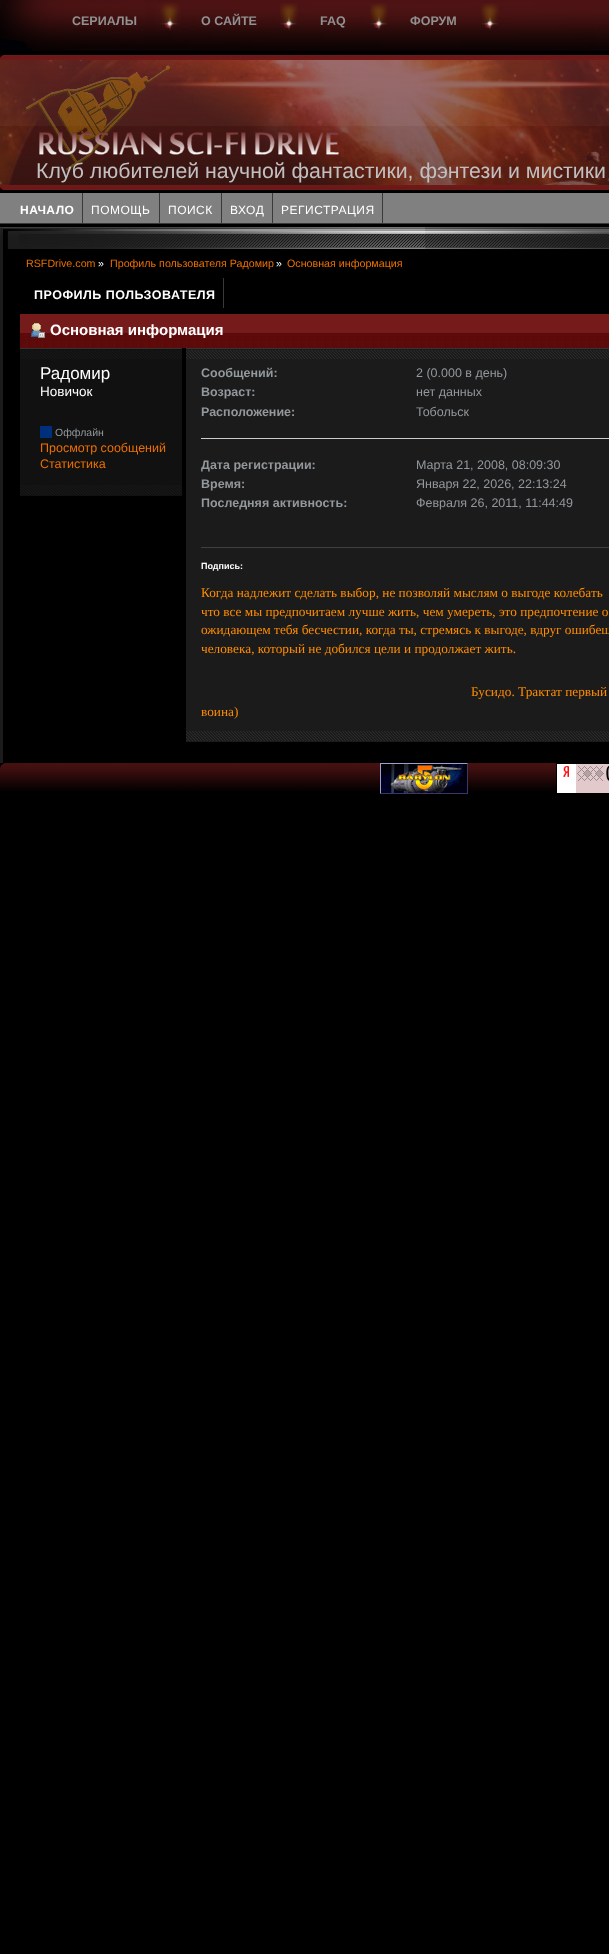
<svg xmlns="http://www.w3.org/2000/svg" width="609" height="1954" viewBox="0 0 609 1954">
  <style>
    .t1 { font: bold 12.5px Liberation Sans; fill: #919191; }
    .t2 { font: 21.3px Liberation Sans; fill: #c0c0c0; }
    .t3 { font: bold 12px Liberation Sans; letter-spacing: 0.5px; fill: #fff; }
    .t4 { font: 12px Liberation Sans; letter-spacing: 0.5px; fill: #fff; }
    .t5 { font: 10.7px Liberation Sans; fill: #ec6f00; }
    .t6 { font: 10.7px Liberation Sans; fill: #fff; }
    .t7 { font: bold 12.5px Liberation Sans; letter-spacing: 0.5px; fill: #fff; }
    .t8 { font: bold 15px Liberation Sans; fill: #fff; }
    .t9 { font: 17px Liberation Sans; fill: #fff; }
    .t10 { font: 13.5px Liberation Sans; fill: #fff; }
    .t11 { font: 10.5px Liberation Sans; fill: #93989c; }
    .t12 { font: 12.5px Liberation Sans; fill: #ec6f00; }
    .t13 { font: bold 12.5px Liberation Sans; fill: #93989c; }
    .t14 { font: 12.5px Liberation Sans; fill: #93989c; }
    .t15 { font: bold 9px Liberation Sans; fill: #fff; }
    .t16 { font: 13.3px Liberation Serif; fill: #ff8c00; }
  </style>
  <rect width="100%" height="100%" fill="#000"/>
  <image x="0" y="0" width="609" height="51" href="images/1.png"/>
  <image x="155" y="2" width="26" height="29" href="images/2.png"/>
  <text x="72" y="25" class="t1">СЕРИАЛЫ</text>
  <image x="280" y="3" width="18" height="27" href="images/3.png"/>
  <text x="201" y="25" class="t1">О САЙТЕ</text>
  <image x="370" y="3" width="18" height="27" href="images/3.png"/>
  <text x="320" y="25" class="t1">FAQ</text>
  <image x="481" y="3" width="18" height="27" href="images/3.png"/>
  <text x="410" y="25" class="t1">ФОРУМ</text>
  <image x="0" y="55" width="609" height="135" href="images/4.png"/>
  <text x="36" y="178" class="t2">Клуб любителей научной фантастики, фэнтези и мистики</text>
  <rect x="0" y="193" width="609" height="30" fill="#808080"/>
  <rect x="0" y="223" width="609" height="1" fill="#393939"/>
  <rect x="82" y="193" width="1" height="30" fill="#393939"/>
  <text x="20" y="214" class="t3">НАЧАЛО</text>
  <rect x="159" y="193" width="1" height="30" fill="#393939"/>
  <text x="91" y="214" class="t4">ПОМОЩЬ</text>
  <rect x="221" y="193" width="1" height="30" fill="#393939"/>
  <text x="168" y="214" class="t4">ПОИСК</text>
  <rect x="272" y="193" width="1" height="30" fill="#393939"/>
  <text x="230" y="214" class="t4">ВХОД</text>
  <rect x="382" y="193" width="1" height="30" fill="#393939"/>
  <text x="281" y="214" class="t4">РЕГИСТРАЦИЯ</text>
  <image x="0" y="227" width="425" height="22" href="images/5.png"/>
  <image x="425" y="227" width="184" height="22" href="images/6.png"/>
  <rect x="0" y="249" width="3" height="514" fill="#1c1c1c"/>
  <text x="26" y="267" class="t5">RSFDrive.com</text>
  <text x="98" y="267" class="t6">»</text>
  <text x="110" y="267" class="t5">Профиль пользователя Радомир</text>
  <text x="276" y="267" class="t6">»</text>
  <text x="287" y="267" class="t5">Основная информация</text>
  <rect x="223" y="278" width="1" height="30" fill="#393939"/>
  <text x="34" y="299" class="t7">ПРОФИЛЬ ПОЛЬЗОВАТЕЛЯ</text>
  <image x="20" y="314" width="589" height="34" href="images/7.png"/>
  <image x="31" y="323" width="14" height="15" href="images/8.png"/>
  <text x="50" y="335" class="t8">Основная информация</text>
  <rect x="20" y="359" width="162" height="126" fill="#111"/>
  <rect x="20" y="348" width="162" height="1" fill="#333"/>
  <image x="20" y="349" width="162" height="10" href="images/9.png"/>
  <text x="40" y="379" class="t9">Радомир</text>
  <text x="40" y="396" class="t10">Новичок</text>
  <rect x="40" y="426" width="12" height="12" fill="#00307d"/>
  <text x="55" y="436" class="t11">Оффлайн</text>
  <text x="40" y="452" class="t12">Просмотр сообщений</text>
  <text x="40" y="468" class="t12">Статистика</text>
  <image x="20" y="485" width="162" height="11" href="images/10.png"/>
  <rect x="186" y="359" width="423" height="372" fill="#1b1b1b"/>
  <rect x="186" y="348" width="423" height="1" fill="#333"/>
  <image x="186" y="349" width="423" height="10" href="images/11.png"/>
  <rect x="201" y="438" width="408" height="1" fill="#ccc"/>
  <text x="201" y="377" class="t13">Сообщений:</text>
  <text x="416" y="377" class="t14">2 (0.000 в день)</text>
  <text x="201" y="396" class="t13">Возраст:</text>
  <text x="416" y="396" class="t14">нет данных</text>
  <text x="201" y="416" class="t13">Расположение:</text>
  <text x="416" y="416" class="t14">Тобольск</text>
  <text x="201" y="469" class="t13">Дата регистрации:</text>
  <text x="416" y="469" class="t14">Марта 21, 2008, 08:09:30</text>
  <text x="201" y="488" class="t13">Время:</text>
  <text x="416" y="488" class="t14">Января 22, 2026, 22:13:24</text>
  <text x="201" y="507" class="t13">Последняя активность:</text>
  <text x="416" y="507" class="t14">Февраля 26, 2011, 11:44:49</text>
  <rect x="201" y="547" width="408" height="1" fill="#3f3f3f"/>
  <text x="201" y="569" class="t15">Подпись:</text>
  <text x="201" y="597" class="t16">Когда надлежит сделать выбор, не позволяй мыслям о выгоде колебать</text>
  <text x="201" y="616" class="t16">что все мы предпочитаем лучше жить, чем умереть, это предпочтение о</text>
  <text x="201" y="634" class="t16">ожидающем тебя бесчестии, когда ты, стремясь к выгоде, вдруг ошибеш</text>
  <text x="201" y="653" class="t16">человека, который не добился цели и продолжает жить.</text>
  <text x="471" y="696" class="t16">Бусидо. Трактат первый</text>
  <text x="201" y="716" class="t16">воина)</text>
  <image x="186" y="731" width="423" height="11" href="images/12.png"/>
  <image x="0" y="763" width="556" height="28" href="images/13.png"/>
  <image x="380" y="763" width="88" height="31" href="images/14.png"/>
  <image x="556" y="763" width="53" height="30" href="images/15.png"/>
</svg>
